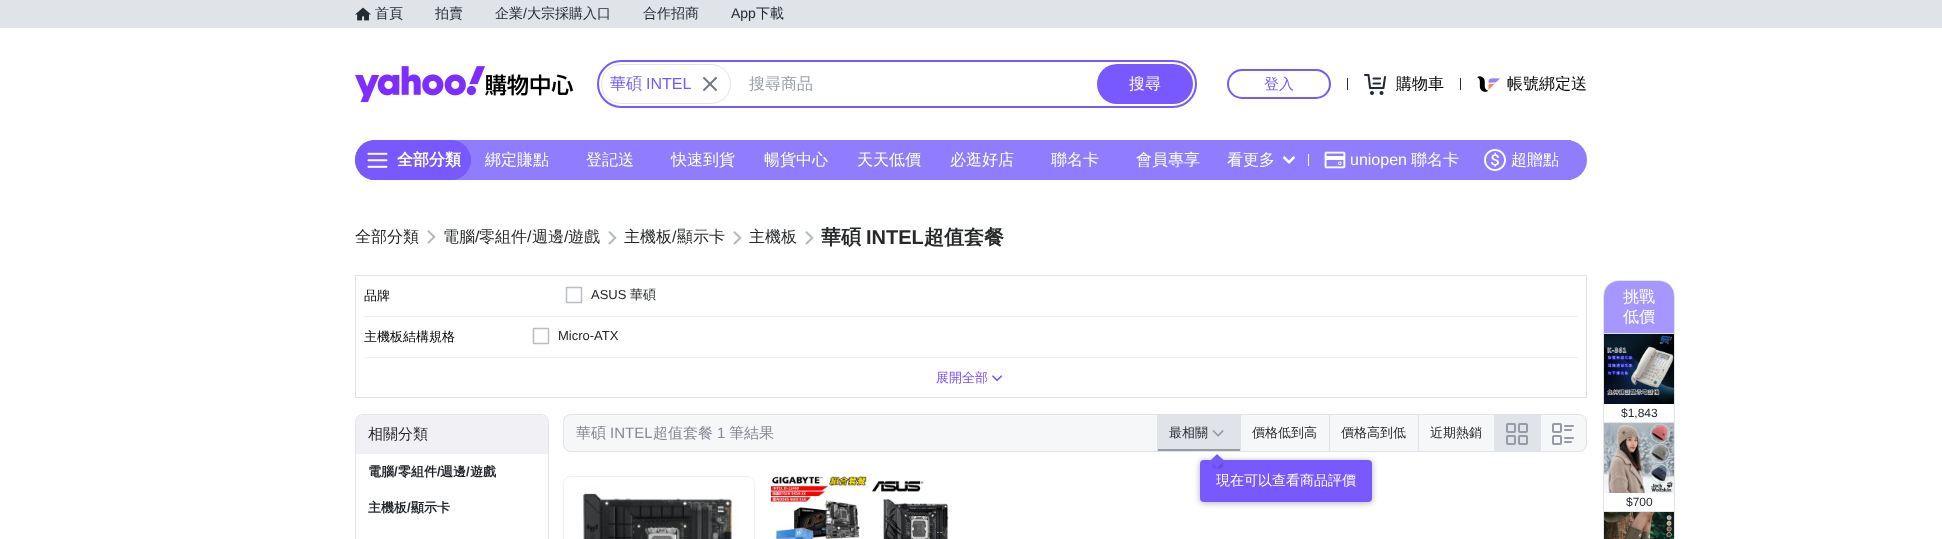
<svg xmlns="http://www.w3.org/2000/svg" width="1942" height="539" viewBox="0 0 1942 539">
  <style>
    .t1 { font: 500 14px WenQuanYi Zen Hei; fill: #232a31; }
    .t2 { font: 14px Liberation Sans; fill: #232a31; }
    .t3 { font: 500 16px WenQuanYi Zen Hei; fill: #7759ff; }
    .t4 { font: 16px Liberation Sans; fill: #7759ff; }
    .t5 { font: 500 16px WenQuanYi Zen Hei; fill: #979ea8; }
    .t6 { font: 500 16px WenQuanYi Zen Hei; fill: #fff; }
    .t7 { font: 500 15px WenQuanYi Zen Hei; fill: #7759ff; }
    .t8 { font: 500 16px WenQuanYi Zen Hei; fill: #000; }
    .t9 { font: bold 16px WenQuanYi Zen Hei; fill: #fff; }
    .t10 { font: 16px Liberation Sans; fill: #fff; }
    .t11 { font: 500 16px WenQuanYi Zen Hei; fill: #26282a; }
    .t12 { font: 16px Liberation Sans; fill: #26282a; }
    .t13 { font: bold 20px WenQuanYi Zen Hei; fill: #26282a; }
    .t14 { font: bold 20px Liberation Sans; fill: #26282a; }
    .t15 { font: 500 13px WenQuanYi Zen Hei; fill: #000; }
    .t16 { font: 13px Liberation Sans; fill: #26282a; }
    .t17 { font: 500 13px WenQuanYi Zen Hei; fill: #26282a; }
    .t18 { font: 500 13px WenQuanYi Zen Hei; fill: #7a4dff; }
    .t19 { font: 500 15px WenQuanYi Zen Hei; fill: #26282a; }
    .t20 { font: bold 13px WenQuanYi Zen Hei; fill: #1d2228; }
    .t21 { font: bold 13px Liberation Sans; fill: #1d2228; }
    .t22 { font: 500 15px WenQuanYi Zen Hei; fill: #858996; }
    .t23 { font: 15px Liberation Sans; fill: #858996; }
    .t24 { font: 500 14px WenQuanYi Zen Hei; fill: #fff; }
    .t25 { font: 12px Liberation Sans; fill: #232a31; }
  </style>
  <rect width="100%" height="100%" fill="#fff"/>
  <rect x="0" y="0" width="1942" height="28" fill="#e0e4e9"/>
  <image x="355" y="7" width="16" height="14" href="images/1.png"/>
  <text x="375" y="18" class="t1">首頁</text>
  <text x="435" y="18" class="t1">拍賣</text>
  <text x="495" y="18" class="t1">企業</text>
  <text x="523" y="18" class="t2">/</text>
  <text x="527" y="18" class="t1">大宗採購入口</text>
  <text x="643" y="18" class="t1">合作招商</text>
  <text x="731" y="18" class="t2">App</text>
  <text x="756" y="18" class="t1">下載</text>
  <image x="355" y="66" width="218" height="36" href="images/2.png"/>
  <rect x="598" y="61" width="598" height="46" rx="23" fill="none" stroke="#7759ff" stroke-width="2"/>
  <rect x="601.5" y="64.5" width="129" height="39" rx="19.5" fill="none" stroke="#e0e4e9"/>
  <text x="610" y="89" class="t3">華碩</text>
  <text x="646" y="89" class="t4">INTEL</text>
  <image x="703" y="77" width="14" height="14" href="images/3.png"/>
  <text x="749" y="89" class="t5">搜尋商品</text>
  <rect x="1097" y="64" width="96" height="40" rx="20" fill="#7759ff"/>
  <text x="1129" y="89" class="t6">搜尋</text>
  <rect x="1228" y="70" width="102" height="28" rx="14" fill="none" stroke="#7759ff" stroke-width="2"/>
  <text x="1264" y="89" class="t7">登入</text>
  <rect x="1347" y="78" width="1" height="12" fill="#232a31"/>
  <image x="1364" y="74" width="22" height="21" href="images/4.png"/>
  <text x="1396" y="89" class="t8">購物車</text>
  <rect x="1460" y="78" width="1" height="12" fill="#232a31"/>
  <image x="1477" y="76" width="23" height="16" href="images/5.png"/>
  <text x="1507" y="89" class="t8">帳號綁定送</text>
  <rect x="355" y="140" width="1232" height="40" rx="20" fill="#907cff"/>
  <rect x="355" y="140" width="116" height="40" rx="20" fill="#7759ff"/>
  <image x="367" y="152" width="21" height="16" href="images/6.png"/>
  <text x="397" y="165" class="t9">全部分類</text>
  <text x="485" y="165" class="t6">綁定賺點</text>
  <text x="586" y="165" class="t6">登記送</text>
  <text x="671" y="165" class="t6">快速到貨</text>
  <text x="764" y="165" class="t6">暢貨中心</text>
  <text x="857" y="165" class="t6">天天低價</text>
  <text x="950" y="165" class="t6">必逛好店</text>
  <text x="1051" y="165" class="t6">聯名卡</text>
  <text x="1136" y="165" class="t6">會員專享</text>
  <text x="1227" y="165" class="t6">看更多</text>
  <image x="1283" y="156" width="12" height="8" href="images/7.png"/>
  <rect x="1308" y="154" width="1" height="12" fill="#fff"/>
  <image x="1324" y="151" width="22" height="18" href="images/8.png"/>
  <text x="1350" y="165" class="t10">uniopen</text>
  <text x="1411" y="165" class="t6">聯名卡</text>
  <rect x="1567" y="140" width="4" height="40" fill="#907cff"/>
  <image x="1484" y="149" width="22" height="22" href="images/9.png"/>
  <text x="1511" y="165" class="t6">超贈點</text>
  <image x="427" y="230" width="9" height="14" href="images/10.png"/>
  <text x="355" y="242" class="t11">全部分類</text>
  <text x="443" y="242" class="t11">電腦</text>
  <text x="475" y="242" class="t12">/</text>
  <text x="479" y="242" class="t11">零組件</text>
  <text x="527" y="242" class="t12">/</text>
  <text x="532" y="242" class="t11">週邊</text>
  <text x="564" y="242" class="t12">/</text>
  <text x="568" y="242" class="t11">遊戲</text>
  <image x="608" y="231" width="9" height="14" href="images/10.png"/>
  <text x="624" y="242" class="t11">主機板</text>
  <text x="672" y="242" class="t12">/</text>
  <text x="677" y="242" class="t11">顯示卡</text>
  <image x="733" y="231" width="9" height="14" href="images/10.png"/>
  <text x="749" y="242" class="t11">主機板</text>
  <image x="805" y="231" width="9" height="14" href="images/10.png"/>
  <text x="821" y="244" class="t13">華碩</text>
  <text x="866" y="244" class="t14">INTEL</text>
  <text x="924" y="244" class="t13">超值套餐</text>
  <rect x="355.5" y="275.5" width="1231" height="122" fill="none" stroke="#e0e4e9"/>
  <text x="364" y="300" class="t15">品牌</text>
  <image x="565" y="286" width="18" height="18" href="images/11.png"/>
  <text x="591" y="299" class="t16">ASUS</text>
  <text x="630" y="299" class="t17">華碩</text>
  <rect x="364" y="316" width="1214" height="1" fill="#eff1f4"/>
  <text x="364" y="341" class="t15">主機板結構規格</text>
  <image x="532" y="327" width="18" height="18" href="images/11.png"/>
  <text x="558" y="340" class="t16">Micro-ATX</text>
  <rect x="364" y="357" width="1214" height="1" fill="#eff1f4"/>
  <text x="936" y="382" class="t18">展開全部</text>
  <image x="992" y="375" width="10" height="7" href="images/12.png"/>
  <rect x="355.5" y="414.5" width="193" height="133" rx="7.5" fill="none" stroke="#e0e4e9"/>
  <path d="M363 415H541C545 415 548 418 548 422V454H356V422C356 418 359 415 363 415Z" fill="#f1f1f5"/>
  <text x="368" y="439" class="t19">相關分類</text>
  <text x="368" y="476" class="t20">電腦 零組件</text>
  <text x="437" y="476" class="t21">/</text>
  <text x="440" y="476" class="t20">週邊 遊戲</text>
  <text x="394" y="476" class="t21">/</text>
  <text x="466" y="476" class="t21">/</text>
  <text x="368" y="512" class="t20">主機板</text>
  <text x="407" y="512" class="t21">/</text>
  <text x="411" y="512" class="t20">顯示卡</text>
  <rect x="563.5" y="414.5" width="1023" height="37" rx="7.5" fill="#f6f7f8" stroke="#e0e4e9"/>
  <text x="576" y="438" class="t22">華碩</text>
  <text x="610" y="438" class="t23">INTEL</text>
  <text x="653" y="438" class="t22">超值套餐</text>
  <text x="717" y="438" class="t23">1</text>
  <text x="729" y="438" class="t22">筆結果</text>
  <rect x="1158" y="415" width="82" height="34" fill="#e0e4e9"/>
  <rect x="1157" y="449" width="83" height="2" fill="#979ba7"/>
  <rect x="1157" y="415" width="1" height="36" fill="#e0e4e9"/>
  <text x="1169" y="437" class="t17">最相關</text>
  <image x="1212" y="430" width="12" height="7" href="images/13.png"/>
  <rect x="1240" y="415" width="1" height="36" fill="#e0e4e9"/>
  <text x="1252" y="437" class="t17">價格低到高</text>
  <rect x="1329" y="415" width="1" height="36" fill="#e0e4e9"/>
  <text x="1341" y="437" class="t17">價格高到低</text>
  <rect x="1418" y="415" width="1" height="36" fill="#e0e4e9"/>
  <text x="1430" y="437" class="t17">近期熱銷</text>
  <rect x="1494" y="415" width="47" height="36" fill="#e0e4e9"/>
  <image x="1506" y="423" width="22" height="22" href="images/14.png"/>
  <image x="1552" y="423" width="22" height="22" href="images/15.png"/>
  <rect x="1200" y="461" width="172" height="42" rx="4" fill="#0000144d" filter="blur(3px)"/>
  <rect x="1200" y="460" width="172" height="42" rx="4" fill="#7759ff"/>
  <rect x="1214" y="459" width="8" height="8" fill="#0000144d" filter="blur(1.5px)"/>
  <path d="M1217 468L1210 461L1217 454L1224.5 461Z" fill="#7759ff"/>
  <text x="1216" y="485" class="t24">現在可以查看商品評價</text>
  <rect x="563.5" y="476.5" width="191" height="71" rx="7.5" fill="none" stroke="#f1f1f5"/>
  <image x="582" y="486" width="156" height="53" href="images/16.png"/>
  <image x="771" y="476" width="96" height="63" href="images/17.png"/>
  <image x="867" y="476" width="96" height="63" href="images/18.png"/>
  <rect x="1603.5" y="280.5" width="71" height="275" rx="15.5" fill="none" stroke="#e0e4e9"/>
  <path d="M1619 281H1659C1667.5 281 1674 287.5 1674 296V333H1604V296C1604 287.5 1610.5 281 1619 281Z" fill="#907cffcc"/>
  <text x="1623" y="302" class="t6">挑戰</text>
  <text x="1623" y="322" class="t6">低價</text>
  <rect x="1604" y="333" width="70" height="1" fill="#e0e4e9"/>
  <rect x="1604" y="422" width="70" height="1" fill="#e0e4e9"/>
  <image x="1604" y="334" width="70" height="70" href="images/19.png"/>
  <text x="1621" y="417" class="t25">$1,843</text>
  <rect x="1604" y="511" width="70" height="1" fill="#e0e4e9"/>
  <image x="1604" y="423" width="70" height="70" href="images/20.png"/>
  <text x="1626" y="506" class="t25">$700</text>
  <image x="1604" y="512" width="70" height="27" href="images/21.png"/>
</svg>
